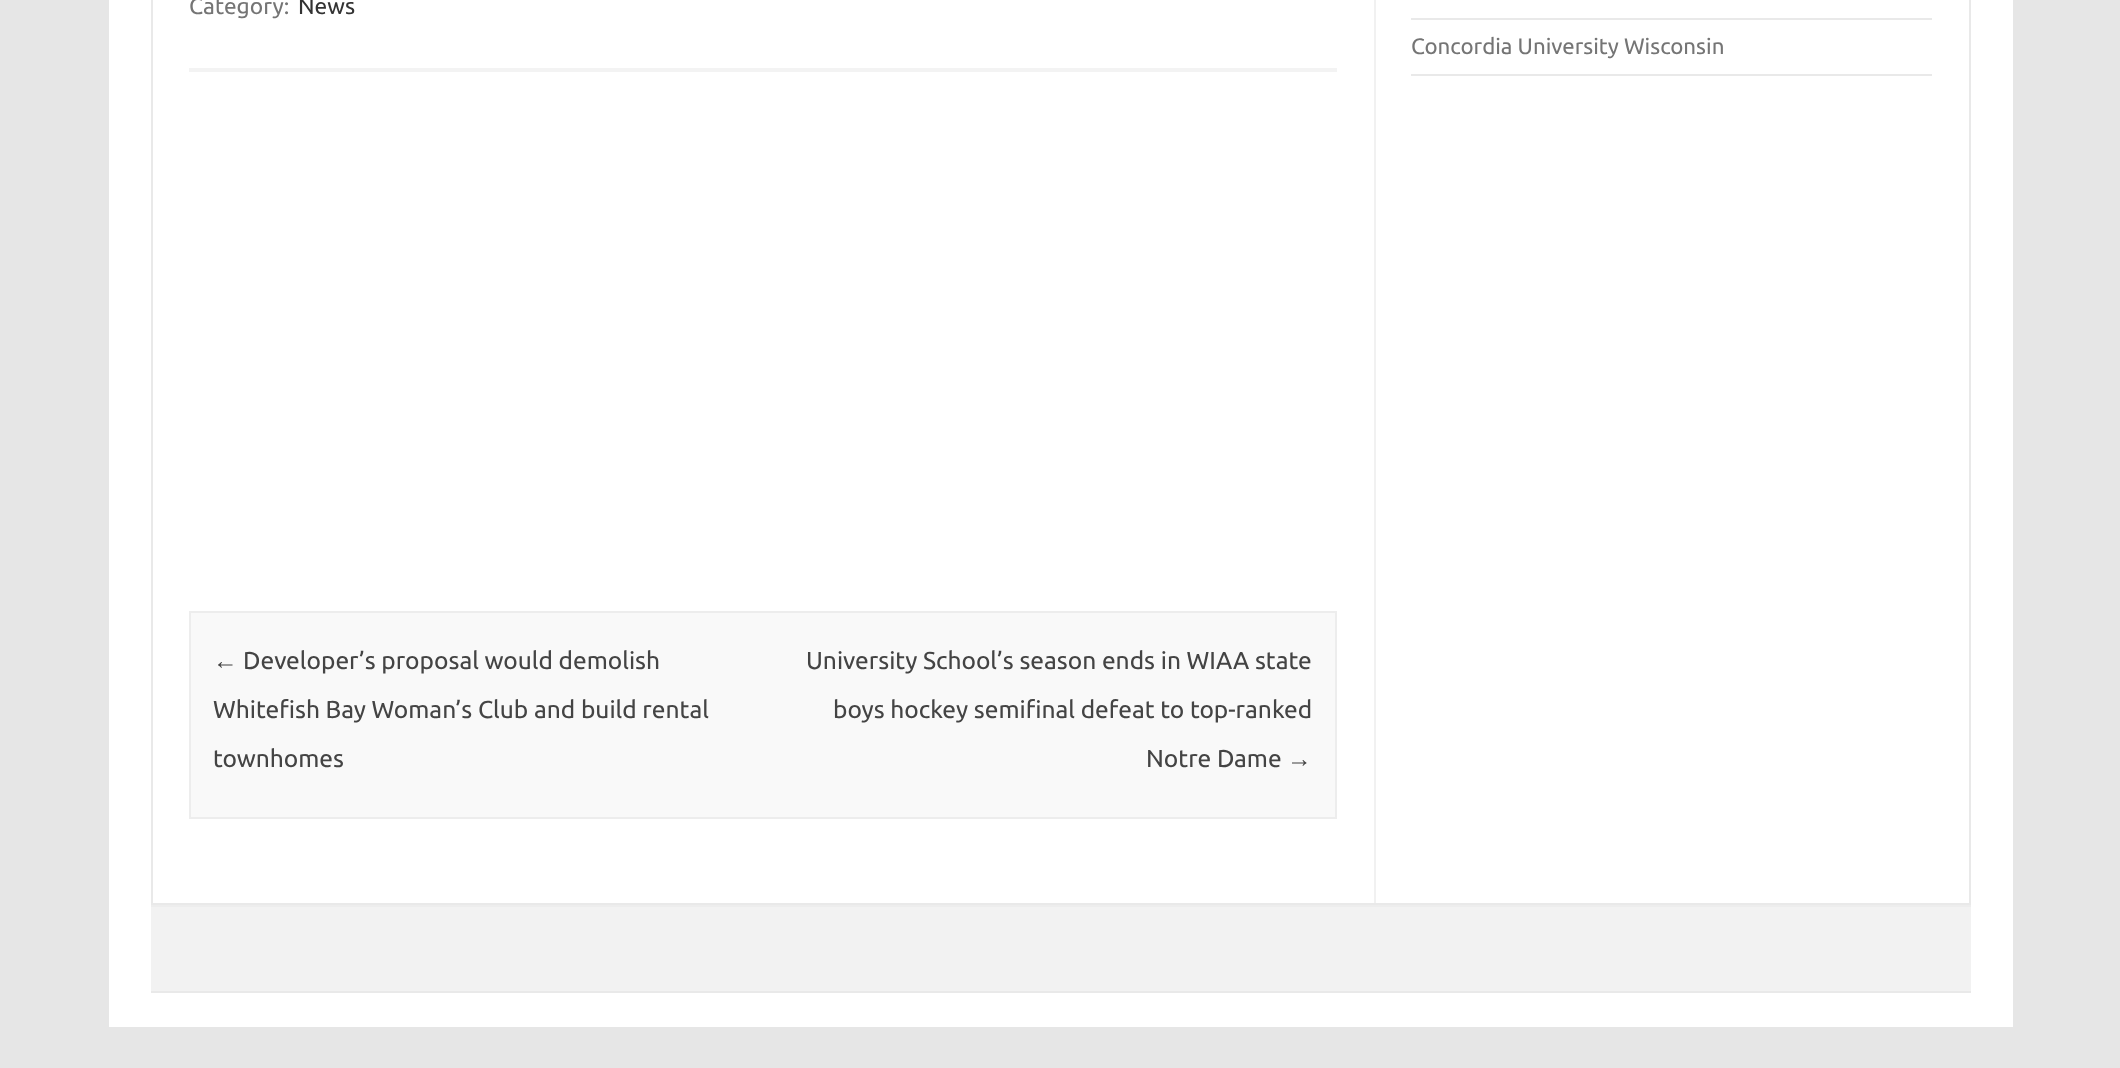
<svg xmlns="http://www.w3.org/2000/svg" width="2120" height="1068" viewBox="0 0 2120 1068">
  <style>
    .t1 { font: 22.75px Ubuntu; fill: #757575; }
    .t2 { font: 22.75px Ubuntu; fill: #333; }
    .t3 { font: 24.5px Liberation Sans; fill: #444; }
    .t4 { font: 24.5px Ubuntu; fill: #444; }
    .t5 { font: 22.25px Ubuntu; fill: #757575; }
  </style>
  <rect width="100%" height="100%" fill="#e6e6e6"/>
  <rect x="109" y="0" width="1904" height="1027" fill="#fff"/>
  <rect x="152" y="-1" width="1818" height="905" fill="none" stroke="#e9e9e9" stroke-width="2"/>
  <rect x="1374" y="0" width="2" height="903" fill="#f1f1f1"/>
  <rect x="189" y="68" width="1148" height="4" fill="#f3f3f3"/>
  <text x="189" y="14" class="t1">Category:</text>
  <text x="298" y="14" class="t2">News</text>
  <rect x="190" y="612" width="1146" height="206" fill="#f9f9f9" stroke="#ededed" stroke-width="2"/>
  <text x="213" y="669" class="t3">←</text>
  <text x="243" y="669" class="t4">Developer’s proposal would demolish</text>
  <text x="213" y="718" class="t4">Whitefish Bay Woman’s Club and build rental</text>
  <text x="213" y="767" class="t4">townhomes</text>
  <text x="806" y="669" class="t4">University School’s season ends in WIAA state</text>
  <text x="833" y="718" class="t4">boys hockey semifinal defeat to top-ranked</text>
  <text x="1146" y="767" class="t4">Notre Dame</text>
  <text x="1287" y="767" class="t3">→</text>
  <rect x="1411" y="18" width="521" height="2" fill="#e9e9e9"/>
  <rect x="1411" y="74" width="521" height="2" fill="#e9e9e9"/>
  <text x="1411" y="54" class="t5">Concordia University Wisconsin</text>
  <rect x="151" y="907" width="1820" height="84" fill="#f2f2f2"/>
  <rect x="151" y="905" width="1820" height="2" fill="#ededed"/>
  <rect x="151" y="991" width="1820" height="2" fill="#e9e9e9"/>
</svg>
